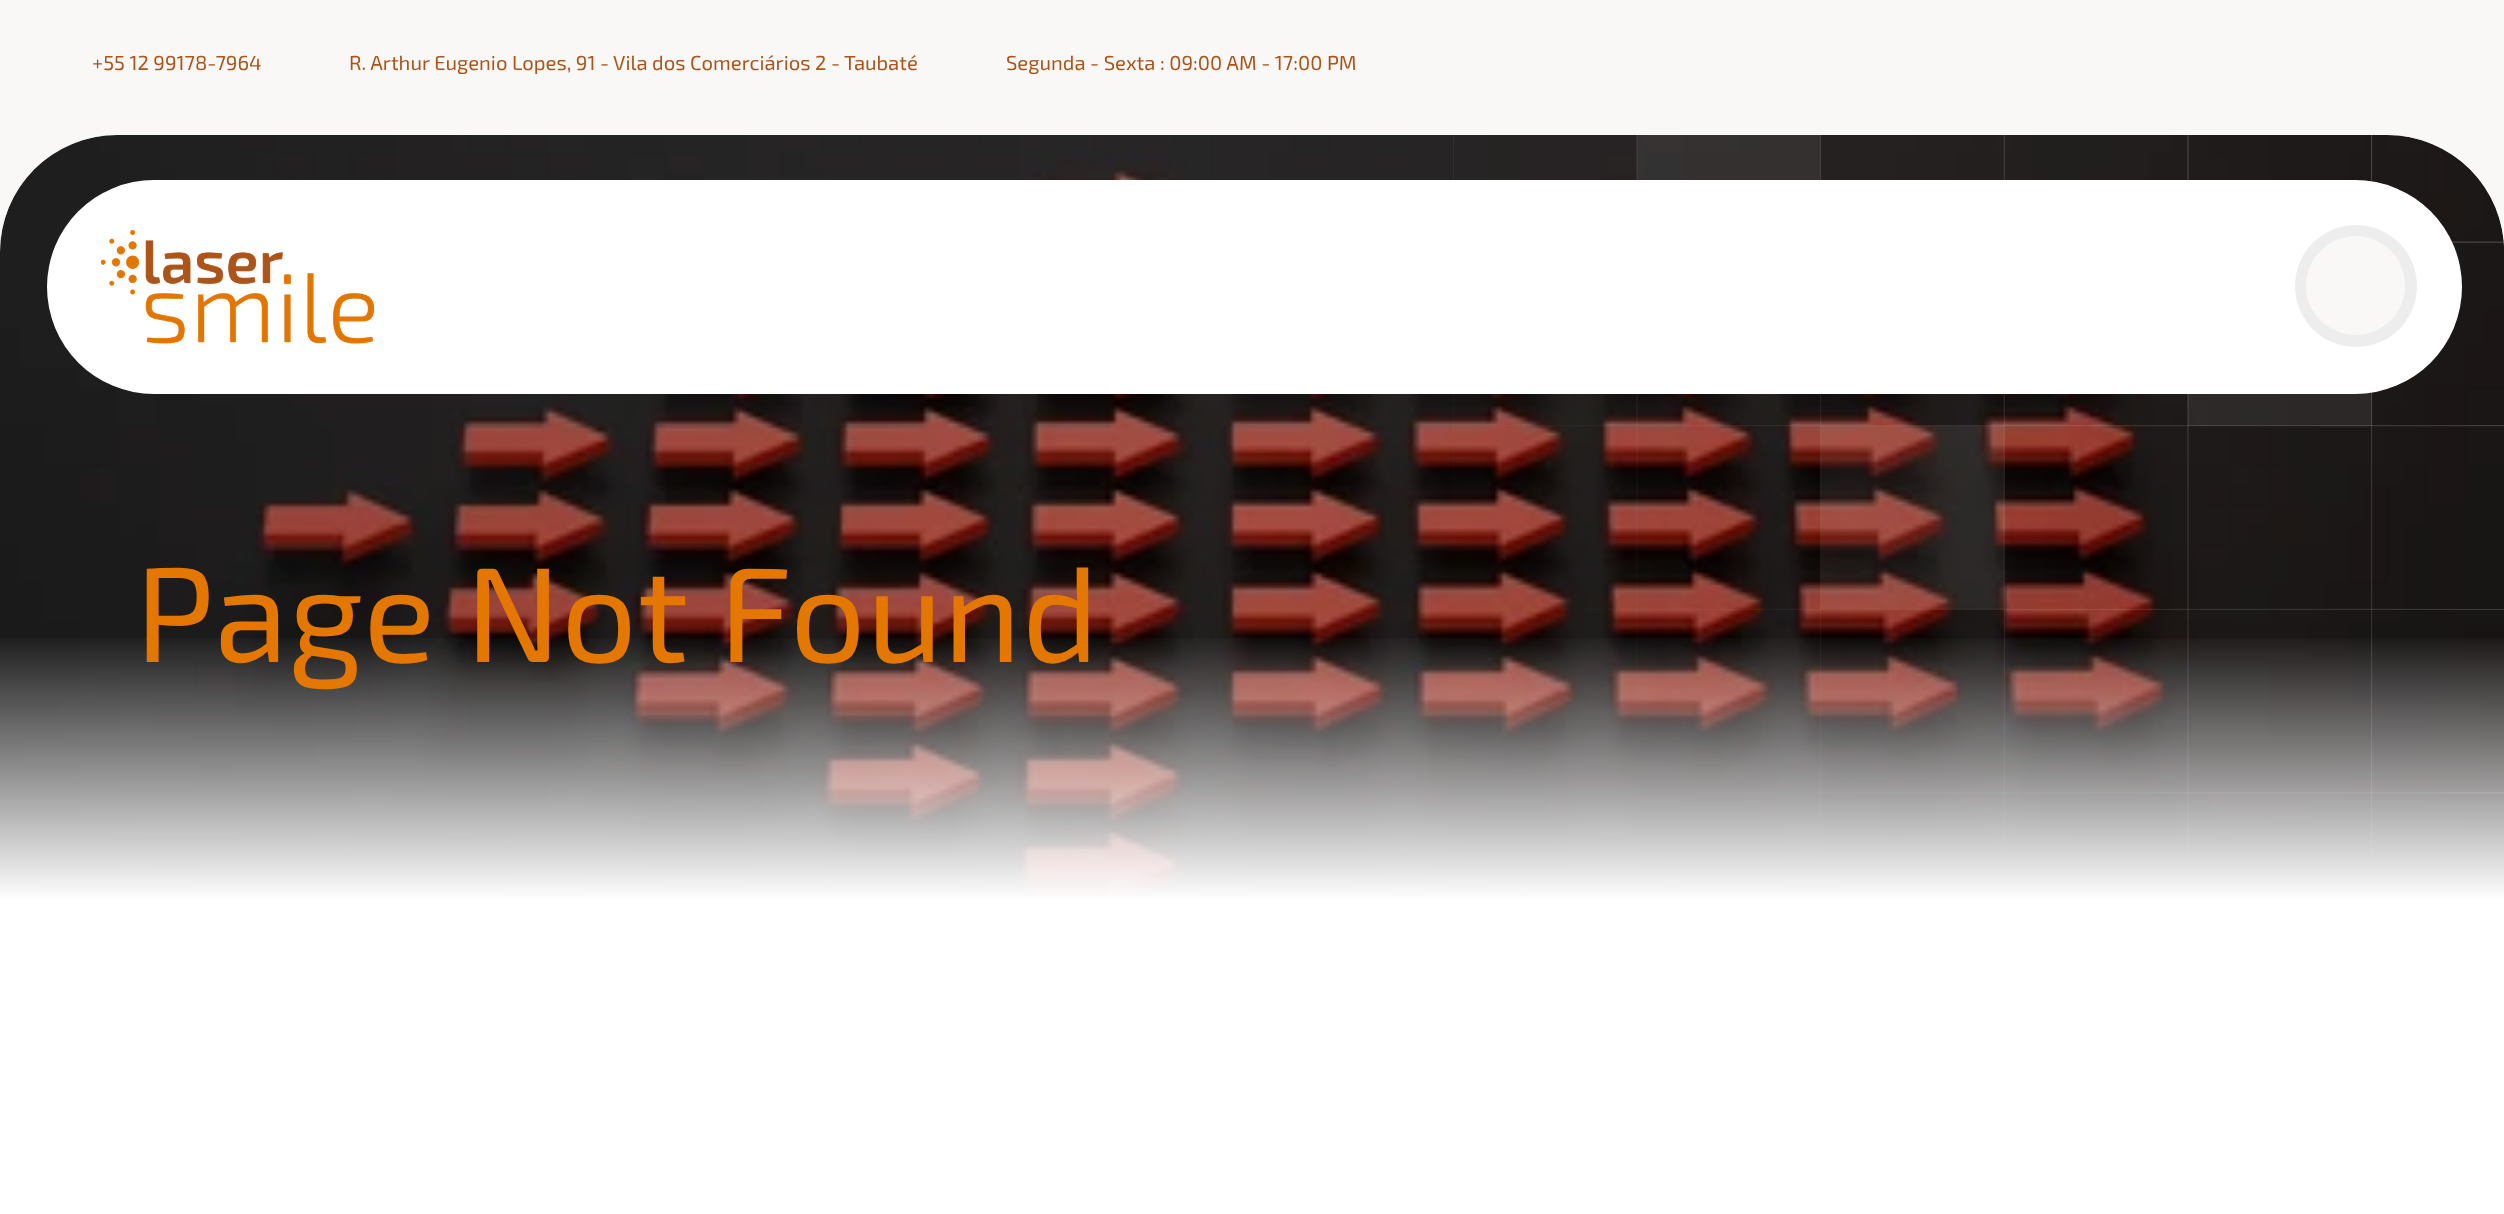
<svg xmlns="http://www.w3.org/2000/svg" width="2504" height="1214" viewBox="0 0 2504 1214">
  <style>
    .t1 { font: 20.25px 'Exo 2'; fill: #ab541b; }
    .t2 { font: 135px 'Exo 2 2'; fill: #e37700; }
  </style>
  <defs>
    <linearGradient id="g1" gradientUnits="userSpaceOnUse" x1="1252" y1="135" x2="1252" y2="900"><stop offset="0.65" stop-color="#fff" stop-opacity="0"/><stop offset="1" stop-color="#fff"/></linearGradient>
  </defs>
  <rect width="100%" height="100%" fill="#fff"/>
  <rect x="0" y="0" width="2504" height="252" fill="#faf8f6"/>
  <text x="92" y="70" class="t1">+55 12 99178-7964</text>
  <text x="349" y="70" class="t1">R. Arthur Eugenio Lopes, 91 - Vila dos Comerciários 2 - Taubaté</text>
  <text x="1006" y="70" class="t1">Segunda - Sexta : 09:00 AM - 17:00 PM</text>
  <image x="0" y="135" width="2504" height="763" href="images/1.png"/>
  <path d="M117 135H2387C2451.5 135 2504 187.5 2504 252V900H0V252C0 187.5 52.5 135 117 135Z" fill="#00000040"/>
  <rect x="0" y="638" width="2504" height="262" fill="url(#g1)"/>
  <image x="1453" y="135" width="1051" height="720" href="images/2.png"/>
  <rect x="47" y="180" width="2415" height="214" rx="107" fill="#fff"/>
  <image x="100" y="229" width="275" height="115" href="images/3.png"/>
  <circle cx="2356" cy="286" r="61" fill="#ededed"/>
  <path d="M2356 236C2328 236 2306 258 2306 286C2306 313 2328 335 2356 335C2383 335 2405 313 2405 286C2405 258 2383 236 2356 236Z" fill="#faf8f6"/>
  <text x="135" y="662" class="t2">Page Not Found</text>
</svg>
